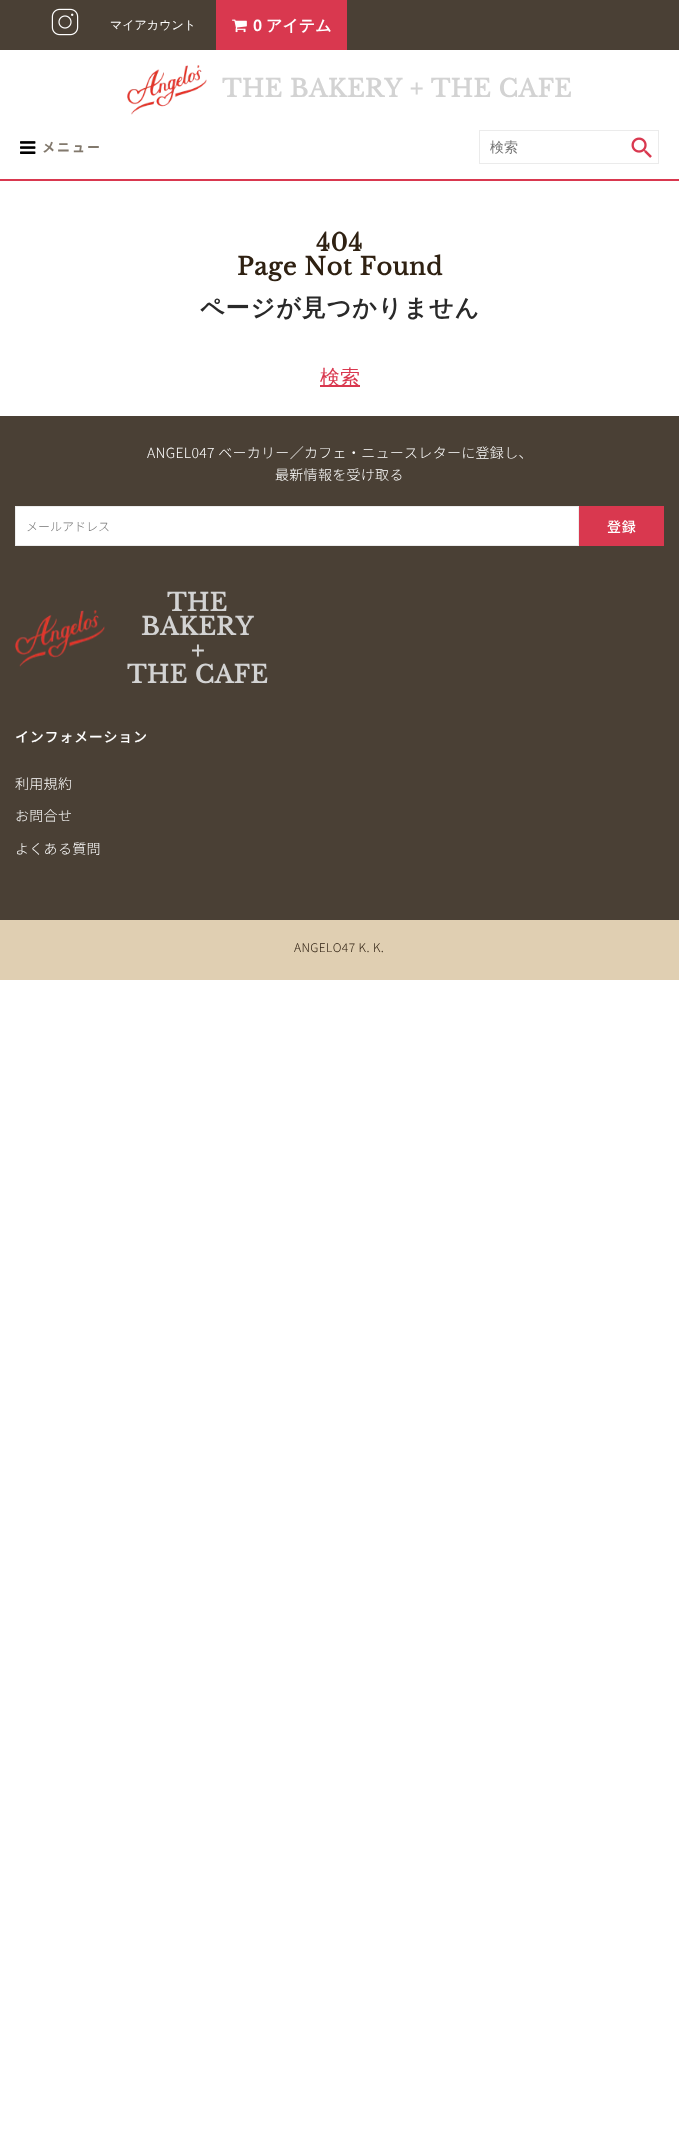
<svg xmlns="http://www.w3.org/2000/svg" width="679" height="2143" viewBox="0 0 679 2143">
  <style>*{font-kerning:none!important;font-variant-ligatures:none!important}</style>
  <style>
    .t1 { font: 500 12px WenQuanYi Zen Hei; fill: #fff; }
    .t2 { font: bold 16px PT Sans; fill: #fff; }
    .t3 { font: bold 16px WenQuanYi Zen Hei; fill: #fff; }
    .t4 { font: bold 24px Libre Baskerville; letter-spacing: 0.5px; fill: #d3d3d3; }
    .t5 { font: bold 13px Noto Sans JP; letter-spacing: 2px; fill: #82796d; }
    .t6 { font: 500 14px WenQuanYi Zen Hei; fill: #757575; }
    .t7 { font: bold 24px Libre Baskerville; letter-spacing: 0.5px; fill: #2f2112; }
    .t8 { font: bold 24px WenQuanYi Zen Hei; letter-spacing: 1px; fill: #292929; }
    .t9 { font: 500 20px WenQuanYi Zen Hei; fill: #d9384f; }
    .t10 { font: 300 14px Noto Sans JP; letter-spacing: 0.3px; fill: #fff; }
    .t11 { font: 300 12px Noto Sans JP; fill: #757575; }
    .t12 { font: 500 14px Noto Sans JP; letter-spacing: 0.75px; fill: #fff; }
    .t13 { font: 300 12px Noto Sans JP; letter-spacing: 0.4px; fill: #2f2112; }
  </style>
  <rect width="100%" height="100%" fill="#fff"/>
  <rect x="0" y="179" width="679" height="2" fill="#d9384f"/>
  <rect x="0" y="0" width="679" height="50" fill="#4a4035"/>
  <image x="51" y="8" width="28" height="28" href="images/1.png"/>
  <text x="110" y="29" class="t1">マイアカウント</text>
  <rect x="216" y="0" width="131" height="50" fill="#d9384f"/>
  <image x="232" y="19" width="15" height="14" href="images/2.png"/>
  <text x="253" y="31" class="t2">0</text>
  <text x="266" y="31" class="t3">アイテム</text>
  <image x="127" y="65" width="80" height="50" href="images/3.png"/>
  <text x="222" y="97" class="t4">THE BAKERY + THE CAFE</text>
  <image x="20" y="141" width="16" height="13" href="images/4.png"/>
  <text x="42" y="152" class="t5">メニュー</text>
  <rect x="479.5" y="130.5" width="179" height="33" fill="none" stroke="#ebebeb"/>
  <text x="490" y="152" class="t6">検索</text>
  <image x="631" y="137" width="21" height="21" href="images/5.png"/>
  <text x="316" y="251" class="t7">404</text>
  <text x="237" y="275" class="t7">Page Not Found</text>
  <text x="200" y="316" class="t8">ページが見つかりません</text>
  <rect x="320" y="385" width="40" height="2" fill="#d9384f"/>
  <text x="320" y="384" class="t9">検索</text>
  <rect x="0" y="416" width="679" height="504" fill="#4a4035"/>
  <text x="147" y="458" class="t10">ANGEL047 ベーカリー／カフェ・ニュースレターに登録し、</text>
  <text x="275" y="480" class="t10">最新情報を受け取る</text>
  <rect x="15.5" y="506.5" width="563" height="39" fill="#fff" stroke="#ededed"/>
  <text x="26" y="531" class="t11">メールアドレス</text>
  <rect x="579" y="506" width="85" height="40" fill="#d9384f"/>
  <text x="607" y="532" class="t12">登録</text>
  <image x="15" y="610" width="90" height="57" href="images/6.png"/>
  <text x="167" y="611" class="t4">THE</text>
  <text x="141" y="635" class="t4">BAKERY</text>
  <text x="191" y="659" class="t4">+</text>
  <text x="127" y="683" class="t4">THE CAFE</text>
  <text x="15" y="742" class="t12">インフォメーション</text>
  <text x="15" y="789" class="t10">利用規約</text>
  <text x="15" y="821" class="t10">お問合せ</text>
  <text x="15" y="854" class="t10">よくある質問</text>
  <rect x="0" y="920" width="679" height="60" fill="#e0cfb2"/>
  <text x="294" y="952" class="t13">ANGELO47 K. K.</text>
</svg>
